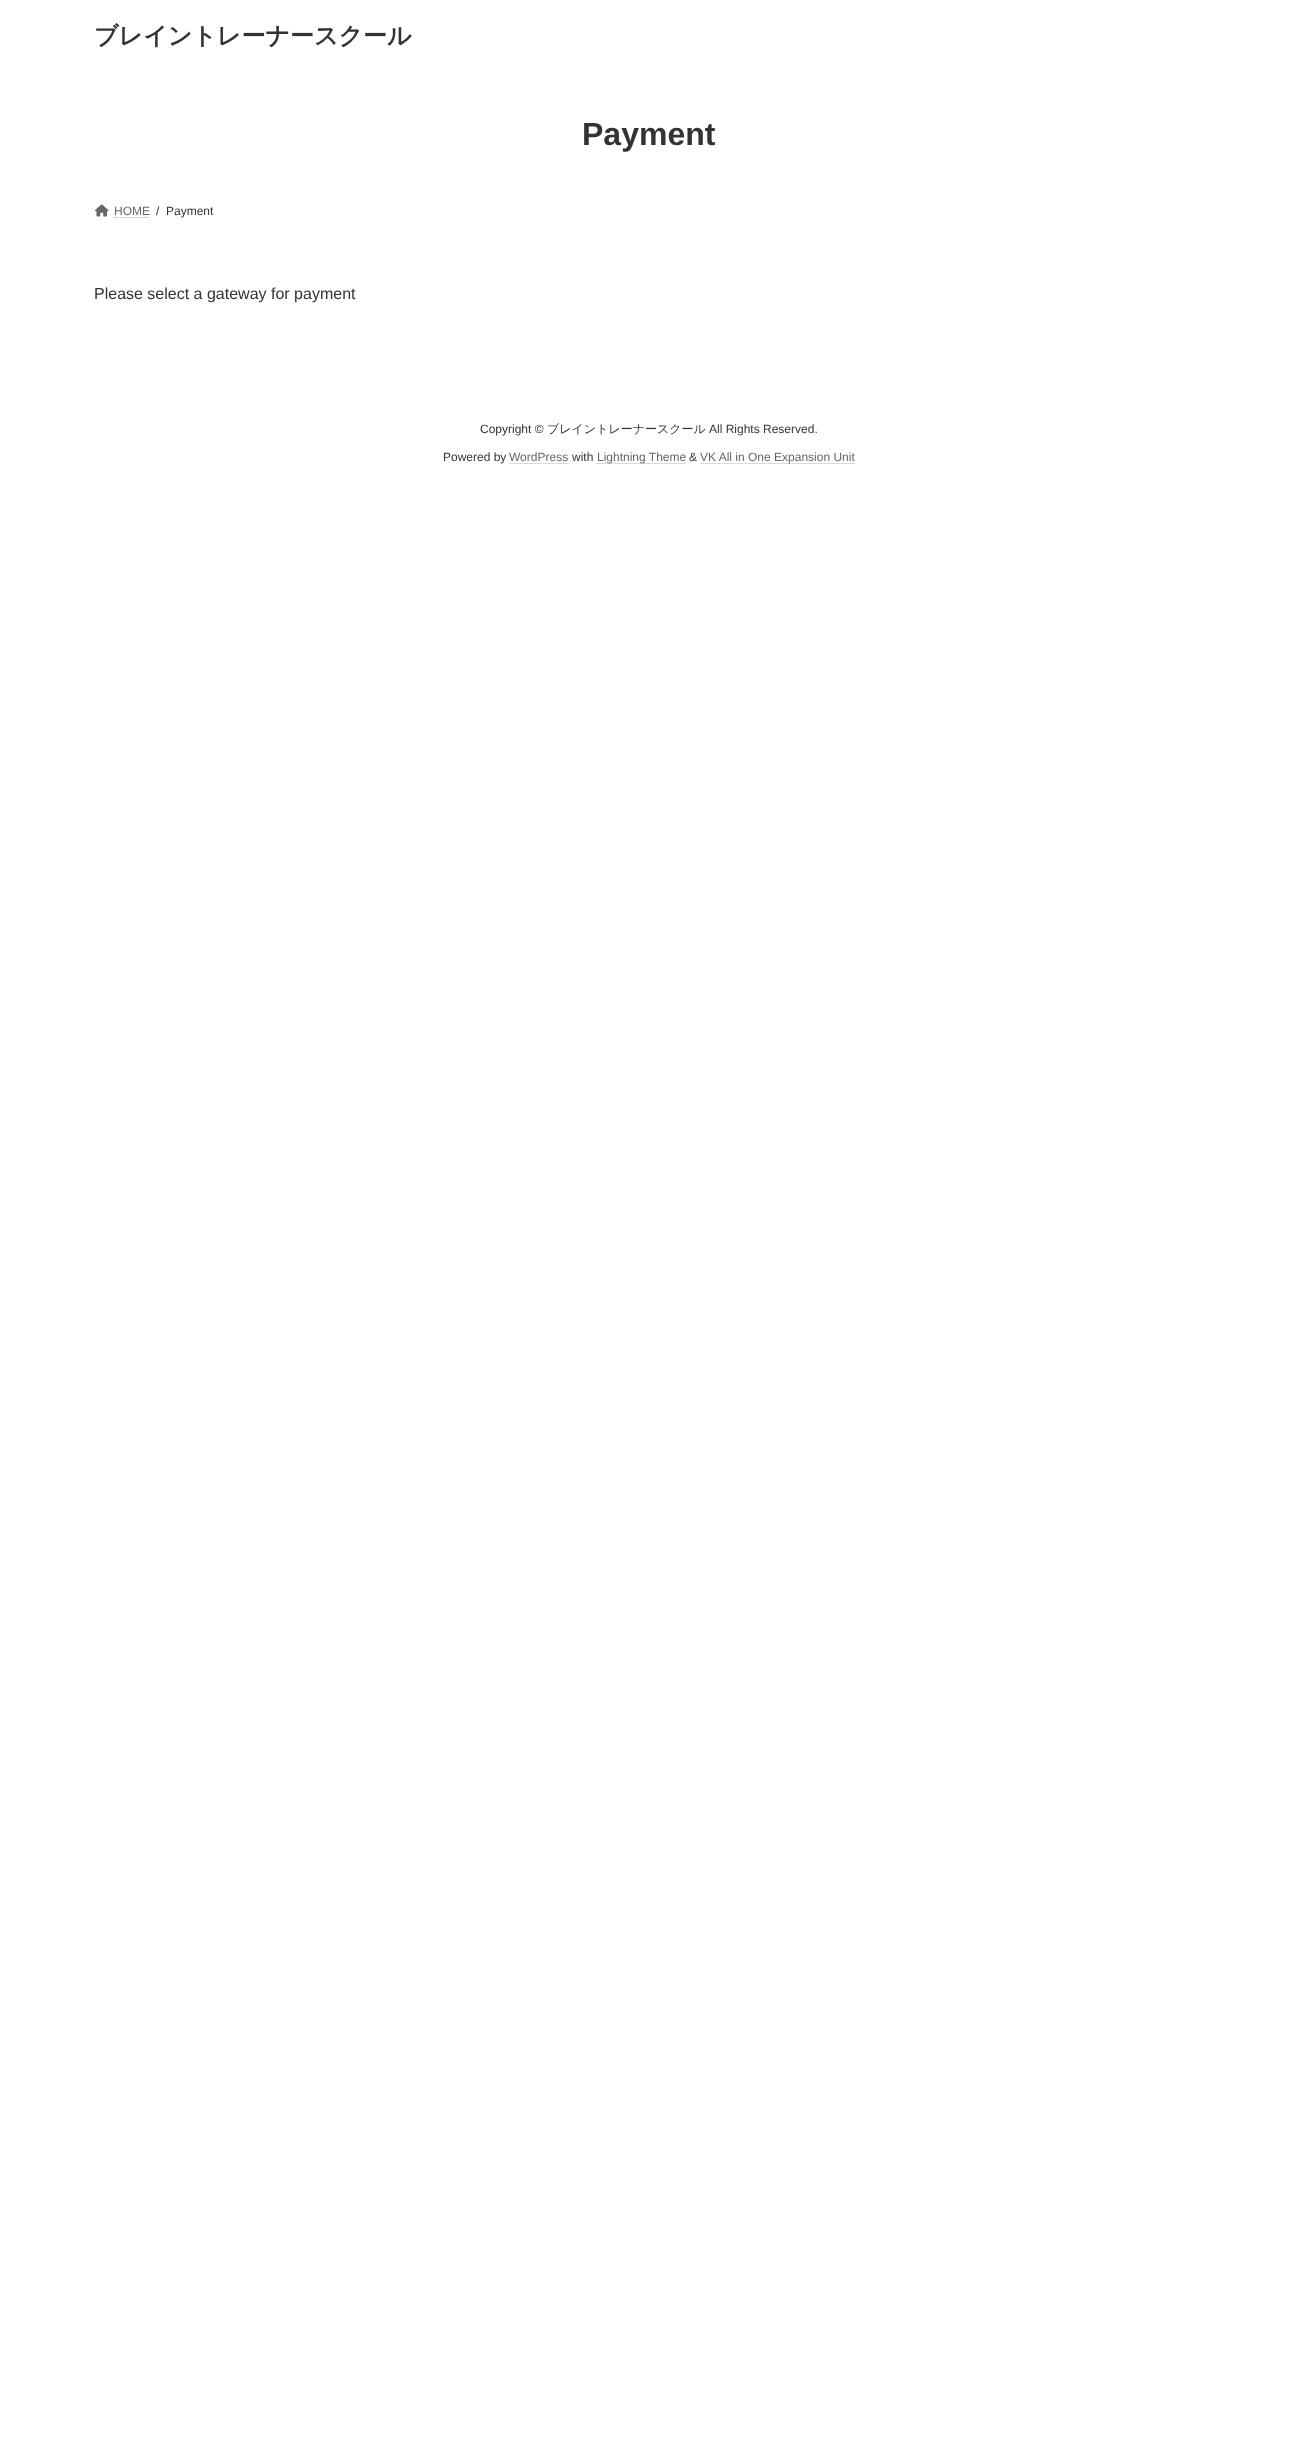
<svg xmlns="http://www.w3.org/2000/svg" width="1298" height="2445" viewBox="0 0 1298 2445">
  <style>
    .t1 { font: bold 24px WenQuanYi Zen Hei; fill: #333; }
    .t2 { font: bold 32px Liberation Sans; fill: #333; }
    .t3 { font: 12px Liberation Sans; fill: #666; }
    .t4 { font: 12px Liberation Sans; fill: #333; }
    .t5 { font: 16px Liberation Sans; fill: #333; }
    .t6 { font: 500 12px WenQuanYi Zen Hei; fill: #333; }
  </style>
  <rect width="100%" height="100%" fill="#fff"/>
  <text x="94" y="44" class="t1">ブレイントレーナースクール</text>
  <text x="582" y="145" class="t2">Payment</text>
  <image x="95" y="204" width="14" height="13" href="images/1.png"/>
  <text x="114" y="215" class="t3">HOME</text>
  <path d="M114 217.5H150" fill="none" stroke="#b3b3b3" stroke-dasharray="1 1"/>
  <text x="156" y="215" class="t4">/</text>
  <text x="166" y="215" class="t4">Payment</text>
  <text x="94" y="299" class="t5">Please select a gateway for payment</text>
  <text x="480" y="433" class="t4">Copyright ©</text>
  <text x="547" y="433" class="t6">ブレイントレーナースクール</text>
  <text x="709" y="433" class="t4">All Rights Reserved.</text>
  <text x="443" y="461" class="t4">Powered by</text>
  <text x="509" y="461" class="t3">WordPress</text>
  <path d="M509.5 463.5H568.5" fill="none" stroke="#b3b3b3" stroke-dasharray="1 1"/>
  <text x="572" y="461" class="t4">with</text>
  <path d="M596.5 463.5H686" fill="none" stroke="#b3b3b3" stroke-dasharray="1 1"/>
  <text x="597" y="461" class="t3">Lightning Theme</text>
  <text x="689" y="461" class="t4">&amp;</text>
  <path d="M700.5 463.5H855" fill="none" stroke="#b3b3b3" stroke-dasharray="1 1"/>
  <text x="700" y="461" class="t3">VK All in One Expansion Unit</text>
</svg>
